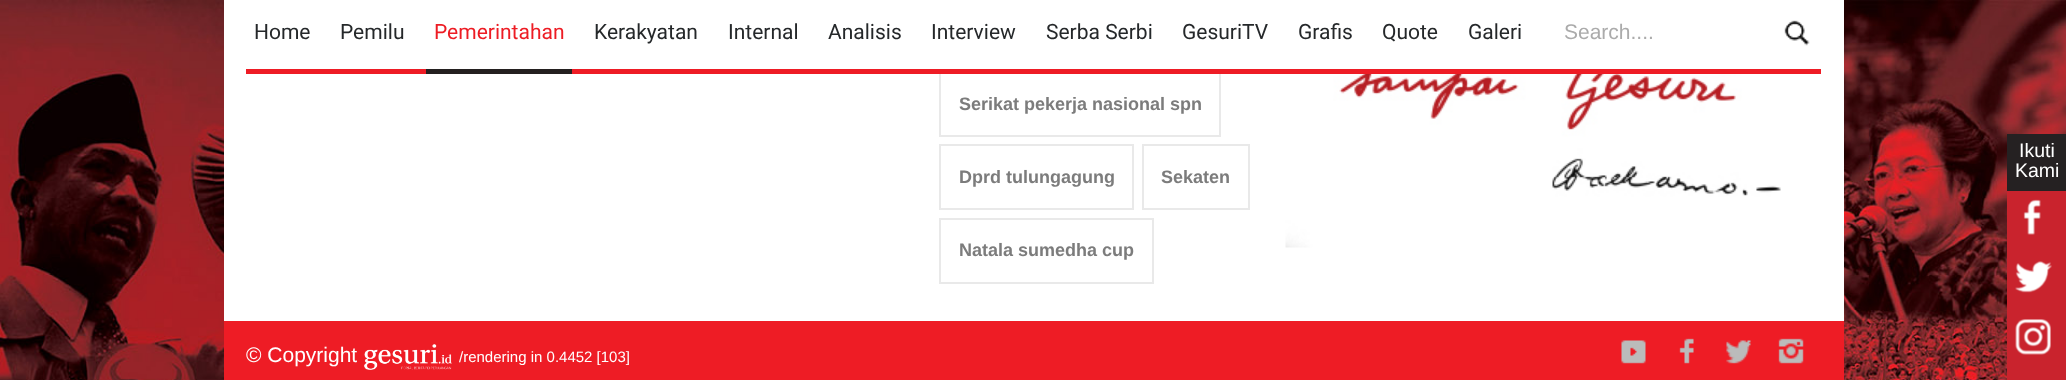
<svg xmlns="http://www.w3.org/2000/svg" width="2066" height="380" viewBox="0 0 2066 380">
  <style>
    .t1 { font: 21px Roboto; fill: #25282a; }
    .t2 { font: 21px Roboto; fill: #ed1c24; }
    .t3 { font: 21px Liberation Sans; fill: #ababab; }
    .t4 { font: bold 18px Liberation Sans; fill: #7c7c7c; }
    .t5 { font: 19.5px Liberation Sans; fill: #fff; }
    .t6 { font: 21px Liberation Sans; fill: #fff; }
    .t7 { font: 15px Liberation Sans; fill: #fff; }
  </style>
  <rect width="100%" height="100%" fill="#fff"/>
  <image x="0" y="0" width="2066" height="380" href="images/1.png"/>
  <rect x="224" y="0" width="1620" height="321" fill="#fff"/>
  <rect x="940" y="72" width="280" height="64" fill="none" stroke="#e9e9e9" stroke-width="2"/>
  <rect x="246" y="69" width="1575" height="5" fill="#ee1c25"/>
  <text x="254" y="39" class="t1">Home</text>
  <text x="340" y="39" class="t1">Pemilu</text>
  <rect x="426" y="69" width="146" height="5" fill="#242020"/>
  <text x="434" y="39" class="t2">Pemerintahan</text>
  <text x="594" y="39" class="t1">Kerakyatan</text>
  <text x="728" y="39" class="t1">Internal</text>
  <text x="828" y="39" class="t1">Analisis</text>
  <text x="931" y="39" class="t1">Interview</text>
  <text x="1046" y="39" class="t1">Serba Serbi</text>
  <text x="1182" y="39" class="t1">GesuriTV</text>
  <text x="1298" y="39" class="t1">Grafis</text>
  <text x="1382" y="39" class="t1">Quote</text>
  <text x="1468" y="39" class="t1">Galeri</text>
  <text x="1564" y="39" class="t3">Search....</text>
  <image x="1784" y="20" width="26" height="26" href="images/2.png"/>
  <text x="959" y="110" class="t4">Serikat pekerja nasional spn</text>
  <rect x="940" y="145" width="193" height="64" fill="none" stroke="#e9e9e9" stroke-width="2"/>
  <text x="959" y="183" class="t4">Dprd tulungagung</text>
  <rect x="1143" y="145" width="106" height="64" fill="none" stroke="#e9e9e9" stroke-width="2"/>
  <text x="1161" y="183" class="t4">Sekaten</text>
  <rect x="940" y="219" width="213" height="64" fill="none" stroke="#e9e9e9" stroke-width="2"/>
  <text x="959" y="256" class="t4">Natala sumedha cup</text>
  <image x="1285" y="74" width="496" height="174" href="images/3.png"/>
  <rect x="2007" y="134" width="59" height="57" fill="#252122"/>
  <text x="2019" y="157" class="t5">Ikuti</text>
  <text x="2015" y="177" class="t5">Kami</text>
  <rect x="2007" y="191" width="59" height="189" fill="#c9232d"/>
  <image x="2023" y="199" width="18" height="36" href="images/4.png"/>
  <image x="2015" y="261" width="37" height="32" href="images/5.png"/>
  <image x="2015" y="319" width="36" height="36" href="images/6.png"/>
  <rect x="224" y="321" width="1620" height="59" fill="#ee1c25"/>
  <text x="246" y="362" class="t6">© Copyright</text>
  <image x="364" y="344" width="88" height="26" href="images/7.png"/>
  <text x="459" y="362" class="t7">/rendering in 0.4452 [103]</text>
  <image x="1621" y="340" width="25" height="24" href="images/8.png"/>
  <image x="1679" y="338" width="15" height="26" href="images/9.png"/>
  <image x="1726" y="340" width="25" height="24" href="images/10.png"/>
  <image x="1778" y="338" width="26" height="26" href="images/11.png"/>
</svg>
